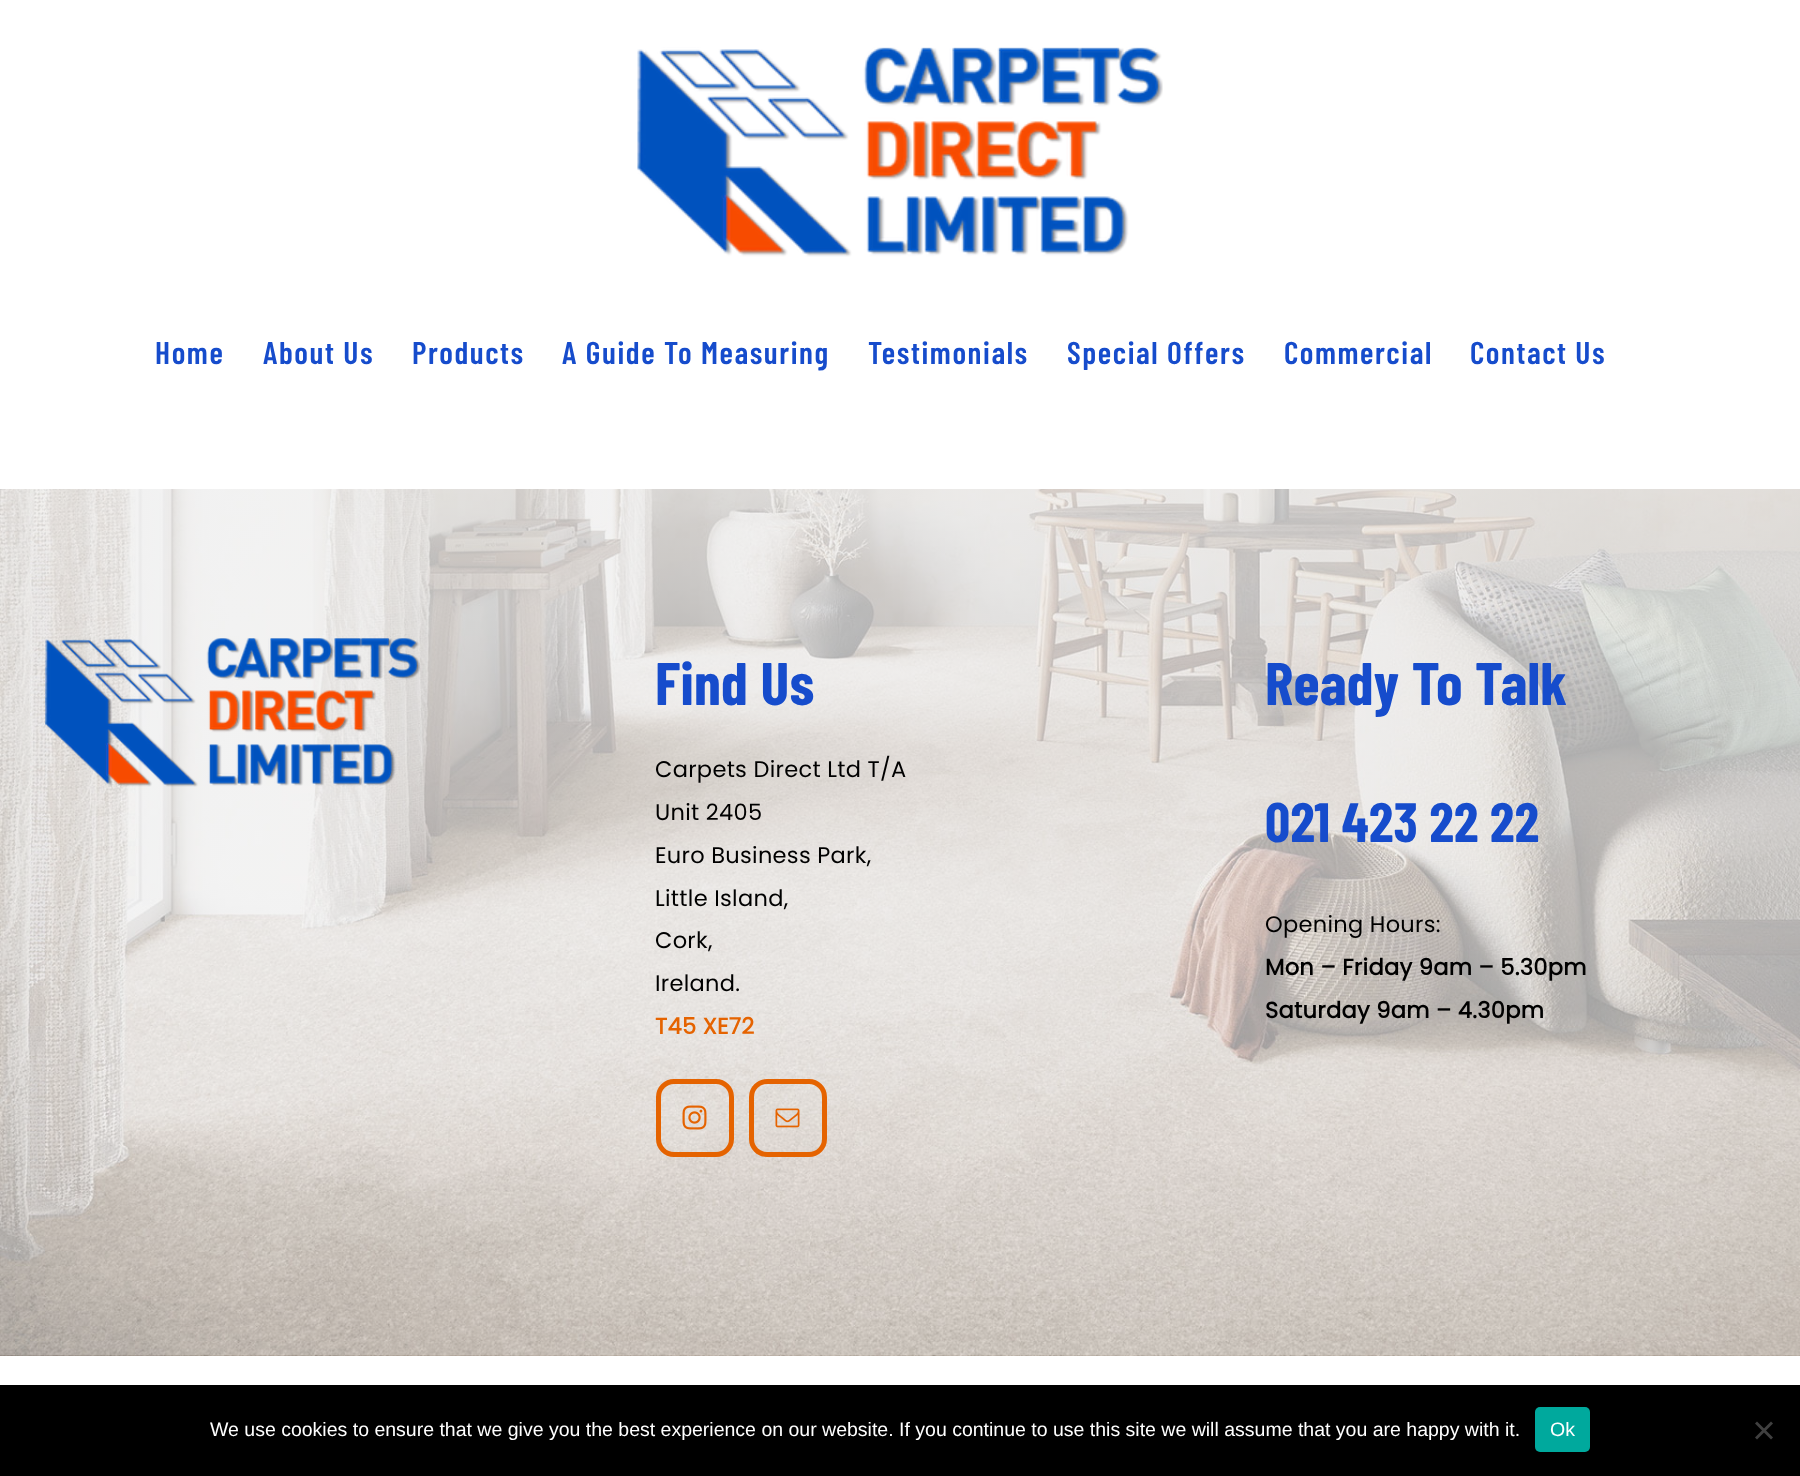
<svg xmlns="http://www.w3.org/2000/svg" width="1800" height="1476" viewBox="0 0 1800 1476">
  <style>
    .t1 { font: 600 31.5px Barlow Condensed; letter-spacing: 1.6px; fill: #164ccc; }
    .t2 { font: bold 60px Barlow Condensed; letter-spacing: 0.3px; fill: #164ccc; }
    .t3 { font: 22.5px Poppins; letter-spacing: 0.3px; fill: #000; }
    .t4 { font: bold 22.5px Poppins; letter-spacing: 0.3px; fill: #e56300; }
    .t5 { font: bold 55.5px Barlow Condensed; letter-spacing: 0.3px; fill: #164ccc; }
    .t6 { font: bold 22.5px Poppins; letter-spacing: 0.3px; fill: #000; }
    .t7 { font: 19.5px Liberation Sans; fill: #fff; }
  </style>
  <rect width="100%" height="100%" fill="#fff"/>
  <image x="637" y="47" width="526" height="210" href="images/1.png"/>
  <text x="155" y="364" class="t1">Home</text>
  <text x="263" y="364" class="t1">About Us</text>
  <text x="412" y="364" class="t1">Products</text>
  <text x="562" y="364" class="t1">A Guide To Measuring</text>
  <text x="868" y="364" class="t1">Testimonials</text>
  <text x="1067" y="364" class="t1">Special Offers</text>
  <text x="1284" y="364" class="t1">Commercial</text>
  <text x="1470" y="364" class="t1">Contact Us</text>
  <image x="0" y="489" width="1800" height="867" href="images/2.png"/>
  <image x="45" y="638" width="375" height="149" href="images/3.png"/>
  <text x="655" y="705" class="t2">Find Us</text>
  <text x="655" y="777" class="t3">Carpets Direct Ltd T/A</text>
  <text x="655" y="820" class="t3">Unit 2405</text>
  <text x="655" y="863" class="t3">Euro Business Park,</text>
  <text x="655" y="906" class="t3">Little Island,</text>
  <text x="655" y="948" class="t3">Cork,</text>
  <text x="655" y="991" class="t3">Ireland.</text>
  <text x="655" y="1034" class="t4">T45 XE72</text>
  <rect x="658.5" y="1081.5" width="73" height="73" rx="15.5" fill="none" stroke="#e56300" stroke-width="5"/>
  <image x="682" y="1105" width="25" height="25" href="images/4.png"/>
  <rect x="751.5" y="1081.5" width="73" height="73" rx="15.5" fill="none" stroke="#e56300" stroke-width="5"/>
  <image x="775" y="1108" width="25" height="20" href="images/5.png"/>
  <text x="1265" y="705" class="t2">Ready To Talk</text>
  <text x="1265" y="842" class="t5">021 423 22 22</text>
  <text x="1265" y="932" class="t3">Opening Hours:</text>
  <text x="1265" y="975" class="t6">Mon – Friday 9am – 5.30pm</text>
  <text x="1265" y="1018" class="t6">Saturday 9am – 4.30pm</text>
  <rect x="0" y="1385" width="1800" height="91" fill="#000"/>
  <text x="210" y="1436" class="t7">We use cookies to ensure that we give you the best experience on our website. If you continue to use this site we will assume that you are happy with it.</text>
  <rect x="1535" y="1407" width="55" height="45" rx="5" fill="#00a99d"/>
  <text x="1550" y="1436" class="t7">Ok</text>
  <path d="M1771 1421.5L1773 1423.5L1757 1439.5L1755 1437.5Z" fill="#404040"/>
  <path d="M1755 1423.5L1757 1421.5L1773 1437.5L1771 1439.5Z" fill="#404040"/>
</svg>
